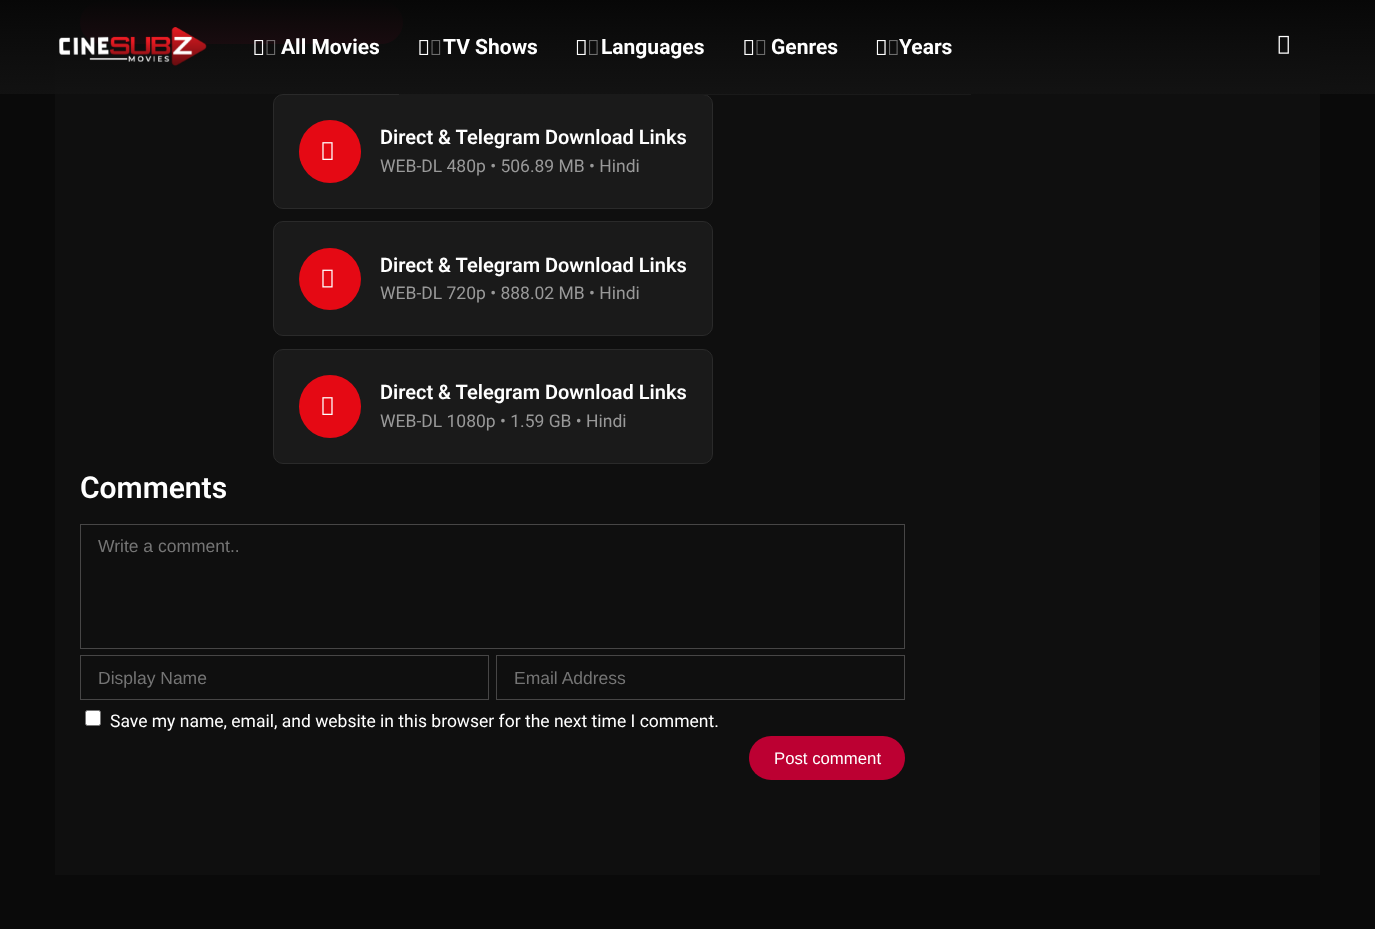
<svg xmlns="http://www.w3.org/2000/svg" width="1375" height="929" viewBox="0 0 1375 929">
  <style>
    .t1 { font: bold 21px Roboto; fill: #fff; }
    .t2 { font: 600 20px Roboto; fill: #fff; }
    .t3 { font: 17.5px Roboto; fill: #999; }
    .t4 { font: 600 30px Roboto; fill: #fff; }
    .t5 { font: 17.5px Liberation Sans; fill: #757575; }
    .t6 { font: 17.5px Roboto; fill: #fff; }
    .t7 { font: 16.75px Liberation Sans; fill: #fff; }
  </style>
  <defs>
    <linearGradient id="g1" gradientUnits="userSpaceOnUse" x1="688" y1="0" x2="688" y2="94"><stop offset="0" stop-color="#070707"/><stop offset="1" stop-color="#131313" stop-opacity="0.85"/></linearGradient>
  </defs>
  <rect width="100%" height="100%" fill="#0a0a0a"/>
  <rect x="55" y="4" width="1265" height="871" fill="#0f0f0f"/>
  <rect x="80.5" y="1.5" width="322" height="42" rx="21" fill="#bc0032" stroke="#bc0032"/>
  <rect x="0" y="0" width="1375" height="94" fill="url(#g1)"/>
  <image x="59" y="27" width="148" height="39" href="images/1.png"/>
  <image x="254" y="40" width="10" height="15" href="images/2.png"/>
  <image x="254" y="40" width="22" height="15" href="images/3.png"/>
  <text x="281" y="54" class="t1">All Movies</text>
  <rect x="273.5" y="94.5" width="439" height="114" rx="9.5" fill="#1a1a1a" stroke="#2a2a2a"/>
  <rect x="399" y="94" width="572" height="1" fill="#1a1a1a"/>
  <image x="419" y="40" width="10" height="15" href="images/4.png"/>
  <image x="419" y="40" width="22" height="15" href="images/5.png"/>
  <text x="443" y="54" class="t1">TV Shows</text>
  <image x="576" y="40" width="10" height="15" href="images/6.png"/>
  <image x="576" y="40" width="22" height="15" href="images/7.png"/>
  <text x="601" y="54" class="t1">Languages</text>
  <image x="744" y="40" width="10" height="15" href="images/4.png"/>
  <image x="744" y="40" width="22" height="15" href="images/5.png"/>
  <text x="771" y="54" class="t1">Genres</text>
  <image x="876" y="40" width="10" height="15" href="images/6.png"/>
  <image x="876" y="40" width="22" height="15" href="images/7.png"/>
  <text x="899" y="54" class="t1">Years</text>
  <image x="1278" y="35" width="11" height="19" href="images/8.png"/>
  <rect x="299" y="120" width="62" height="63" rx="31" fill="#e50914"/>
  <image x="322" y="142" width="11" height="18" href="images/9.png"/>
  <text x="380" y="144" class="t2">Direct &amp; Telegram Download Links</text>
  <text x="380" y="172" class="t3">WEB-DL 480p • 506.89 MB • Hindi</text>
  <rect x="273.5" y="221.5" width="439" height="114" rx="9.5" fill="#1a1a1a" stroke="#2a2a2a"/>
  <circle cx="330" cy="279" r="31" fill="#e50914"/>
  <image x="322" y="269" width="11" height="19" href="images/10.png"/>
  <text x="380" y="272" class="t2">Direct &amp; Telegram Download Links</text>
  <text x="380" y="299" class="t3">WEB-DL 720p • 888.02 MB • Hindi</text>
  <rect x="273.5" y="349.5" width="439" height="114" rx="9.5" fill="#1a1a1a" stroke="#2a2a2a"/>
  <rect x="299" y="375" width="62" height="63" rx="31" fill="#e50914"/>
  <image x="322" y="397" width="11" height="18" href="images/9.png"/>
  <text x="380" y="399" class="t2">Direct &amp; Telegram Download Links</text>
  <text x="380" y="427" class="t3">WEB-DL 1080p • 1.59 GB • Hindi</text>
  <text x="80" y="498" class="t4">Comments</text>
  <rect x="80.5" y="524.5" width="824" height="124" fill="none" stroke="#474646"/>
  <text x="98" y="552" class="t5">Write a comment..</text>
  <rect x="80.5" y="655.5" width="408" height="44" fill="none" stroke="#474646"/>
  <text x="98" y="684" class="t5">Display Name</text>
  <rect x="496.5" y="655.5" width="408" height="44" fill="none" stroke="#474646"/>
  <text x="514" y="684" class="t5">Email Address</text>
  <rect x="85.5" y="710.5" width="15" height="15" rx="2" fill="#fff" stroke="#767676"/>
  <text x="110" y="727" class="t6">Save my name, email, and website in this browser for the next time I comment.</text>
  <rect x="749" y="736" width="156" height="44" rx="22" fill="#bc0032"/>
  <text x="774" y="764" class="t7">Post comment</text>
</svg>
